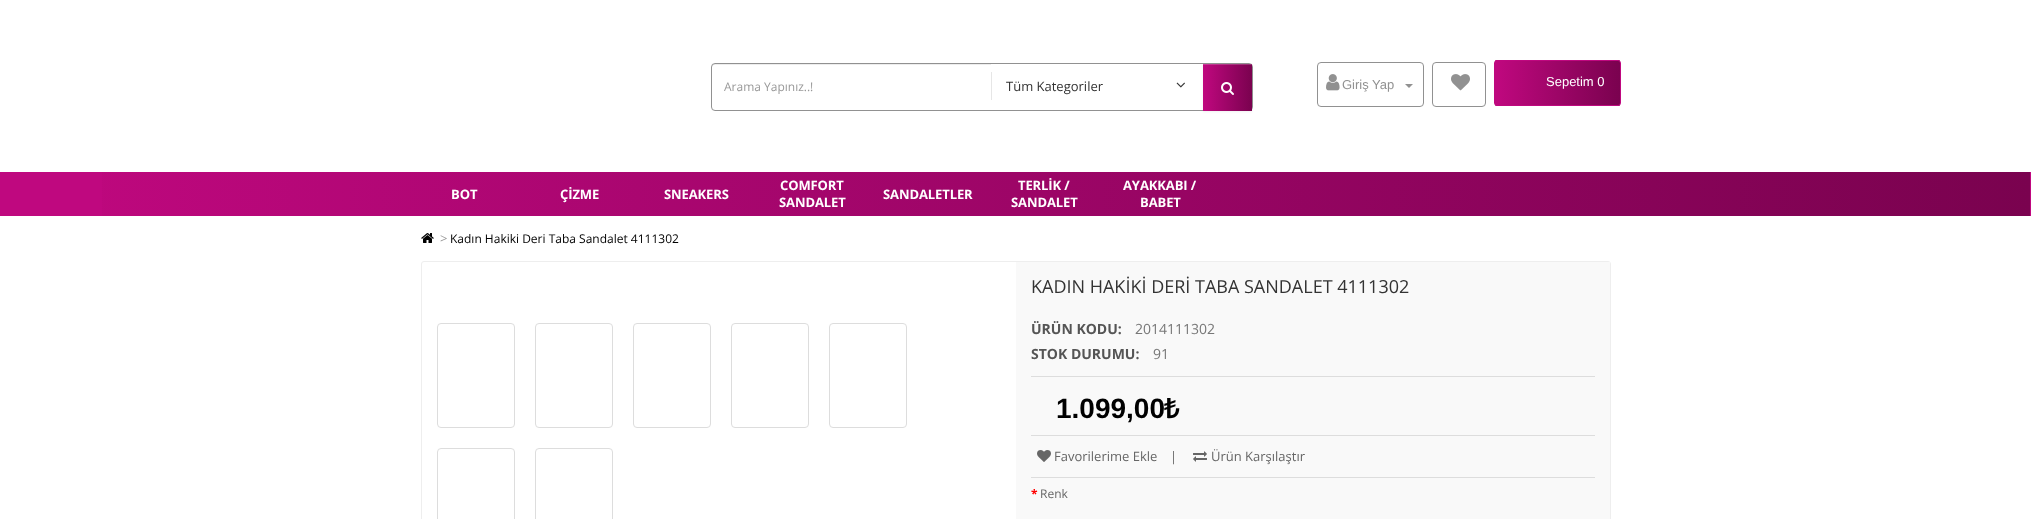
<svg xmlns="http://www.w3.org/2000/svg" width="2031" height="519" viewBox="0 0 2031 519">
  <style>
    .t1 { font: 12px Open Sans; fill: #999; }
    .t2 { font: 13px Open Sans; fill: #333; }
    .t3 { font: 13px Liberation Sans; fill: #919191; }
    .t4 { font: 13px Liberation Sans; fill: #fff; }
    .t5 { font: bold 13px Open Sans; letter-spacing: -0.1px; fill: #fff; }
    .t6 { font: 13px Open Sans; fill: #999; }
    .t7 { font: 12px Open Sans; fill: #000; }
    .t8 { font: 18px Open Sans; fill: #333; }
    .t9 { font: bold 14px Open Sans; fill: #555; }
    .t10 { font: 14px Open Sans; fill: #777; }
    .t11 { font: bold 28px Liberation Sans; fill: #000; }
    .t12 { font: 600 28px Noto Sans; fill: #000; }
    .t13 { font: 13px Open Sans; fill: #666; }
    .t14 { font: bold 12px Open Sans; fill: #f00; }
    .t15 { font: 12px Open Sans; fill: #666; }
  </style>
  <defs>
    <linearGradient id="g1" gradientUnits="userSpaceOnUse" x1="1203" y1="88" x2="1252" y2="88"><stop offset="0" stop-color="#c0087f"/><stop offset="1" stop-color="#7a024f"/></linearGradient>
    <clipPath id="clip1"><rect x="1494" y="60" width="127" height="46" rx="3"/></clipPath>
    <linearGradient id="g2" gradientUnits="userSpaceOnUse" x1="1495" y1="83" x2="1620" y2="83"><stop offset="0" stop-color="#c0087f"/><stop offset="1" stop-color="#7a024f"/></linearGradient>
    <linearGradient id="g3" gradientUnits="userSpaceOnUse" x1="1" y1="194" x2="2030" y2="194"><stop offset="0" stop-color="#c0087f"/><stop offset="1" stop-color="#7a024f"/></linearGradient>
  </defs>
  <rect width="100%" height="100%" fill="#fff"/>
  <rect x="711.5" y="63.5" width="541" height="47" rx="3.5" fill="none" stroke="#919191"/>
  <path d="M714 65H991V64H714C713 64 712 65 712 66C712 66 713 65 714 65Z" fill="#00000012"/>
  <text x="724" y="91" class="t1">Arama Yapınız..!</text>
  <rect x="991" y="72" width="1" height="28" fill="#e6e6e6"/>
  <text x="1006" y="91" class="t2">Tüm Kategoriler</text>
  <image x="1176" y="82" width="9" height="6" href="images/1.png"/>
  <rect x="1203" y="65" width="49" height="47" fill="#0000000d" filter="blur(1px)"/>
  <rect x="1203" y="64" width="49" height="47" fill="url(#g1)"/>
  <rect x="1203" y="64" width="49" height="1" fill="#ffffff33"/>
  <image x="1221" y="82" width="13" height="13" href="images/2.png"/>
  <rect x="1317.5" y="62.5" width="106" height="44" rx="3.5" fill="none" stroke="#919191"/>
  <image x="1326" y="74" width="14" height="17" href="images/3.png"/>
  <text x="1342" y="89" class="t3">Giriş Yap</text>
  <path d="M1405 84H1413L1409 88Z" fill="#919191"/>
  <rect x="1432.5" y="62.5" width="53" height="44" rx="3.5" fill="none" stroke="#919191"/>
  <image x="1451" y="74" width="19" height="17" href="images/4.png"/>
  <g clip-path="url(#clip1)">
    <rect x="1495" y="60" width="125" height="46" fill="url(#g2)"/>
  </g>
  <rect x="1494.5" y="60.5" width="126" height="45" rx="2.5" fill="none" stroke="#bf087f"/>
  <text x="1546" y="86" class="t4">Sepetim 0</text>
  <rect x="0" y="172" width="2031" height="44" fill="#bf087f"/>
  <rect x="102" y="172" width="1928" height="44" fill="url(#g3)"/>
  <text x="451" y="199" class="t5">BOT</text>
  <text x="560" y="199" class="t5">ÇİZME</text>
  <text x="664" y="199" class="t5">SNEAKERS</text>
  <text x="780" y="190" class="t5">COMFORT</text>
  <text x="779" y="207" class="t5">SANDALET</text>
  <text x="883" y="199" class="t5">SANDALETLER</text>
  <text x="1018" y="190" class="t5">TERLİK /</text>
  <text x="1011" y="207" class="t5">SANDALET</text>
  <text x="1123" y="190" class="t5">AYAKKABI /</text>
  <text x="1140" y="207" class="t5">BABET</text>
  <image x="421" y="233" width="13" height="10" href="images/5.png"/>
  <text x="440" y="243" class="t6">&gt;</text>
  <text x="450" y="243" class="t7">Kadın Hakiki Deri Taba Sandalet 4111302</text>
  <rect x="421.5" y="261.5" width="1189" height="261" rx="2.5" fill="none" stroke="#eee"/>
  <rect x="437.5" y="323.5" width="77" height="104" rx="3.5" fill="none" stroke="#ddd"/>
  <rect x="535.5" y="323.5" width="77" height="104" rx="3.5" fill="none" stroke="#ddd"/>
  <rect x="633.5" y="323.5" width="77" height="104" rx="3.5" fill="none" stroke="#ddd"/>
  <rect x="731.5" y="323.5" width="77" height="104" rx="3.5" fill="none" stroke="#ddd"/>
  <rect x="829.5" y="323.5" width="77" height="104" rx="3.5" fill="none" stroke="#ddd"/>
  <rect x="437.5" y="448.5" width="77" height="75" rx="3.5" fill="none" stroke="#ddd"/>
  <rect x="535.5" y="448.5" width="77" height="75" rx="3.5" fill="none" stroke="#ddd"/>
  <rect x="1016" y="262" width="594" height="257" fill="#f9f9f9"/>
  <text x="1031" y="293" class="t8">KADIN HAKİKİ DERİ TABA SANDALET 4111302</text>
  <rect x="1031" y="376" width="564" height="1" fill="#ddd"/>
  <text x="1031" y="334" class="t9">ÜRÜN KODU:</text>
  <text x="1135" y="334" class="t10">2014111302</text>
  <text x="1031" y="359" class="t9">STOK DURUMU:</text>
  <text x="1153" y="359" class="t10">91</text>
  <rect x="1031" y="435" width="564" height="1" fill="#ddd"/>
  <text x="1056" y="418" class="t11">1.099,00</text>
  <text x="1164" y="418" class="t12">₺</text>
  <rect x="1031" y="477" width="564" height="1" fill="#ddd"/>
  <image x="1037" y="450" width="14" height="12" href="images/6.png"/>
  <text x="1054" y="461" class="t13">Favorilerime Ekle</text>
  <text x="1170" y="461" class="t13">|</text>
  <image x="1193" y="451" width="14" height="11" href="images/7.png"/>
  <text x="1211" y="461" class="t13">Ürün Karşılaştır</text>
  <text x="1031" y="498" class="t14">*</text>
  <text x="1040" y="498" class="t15">Renk</text>
</svg>
